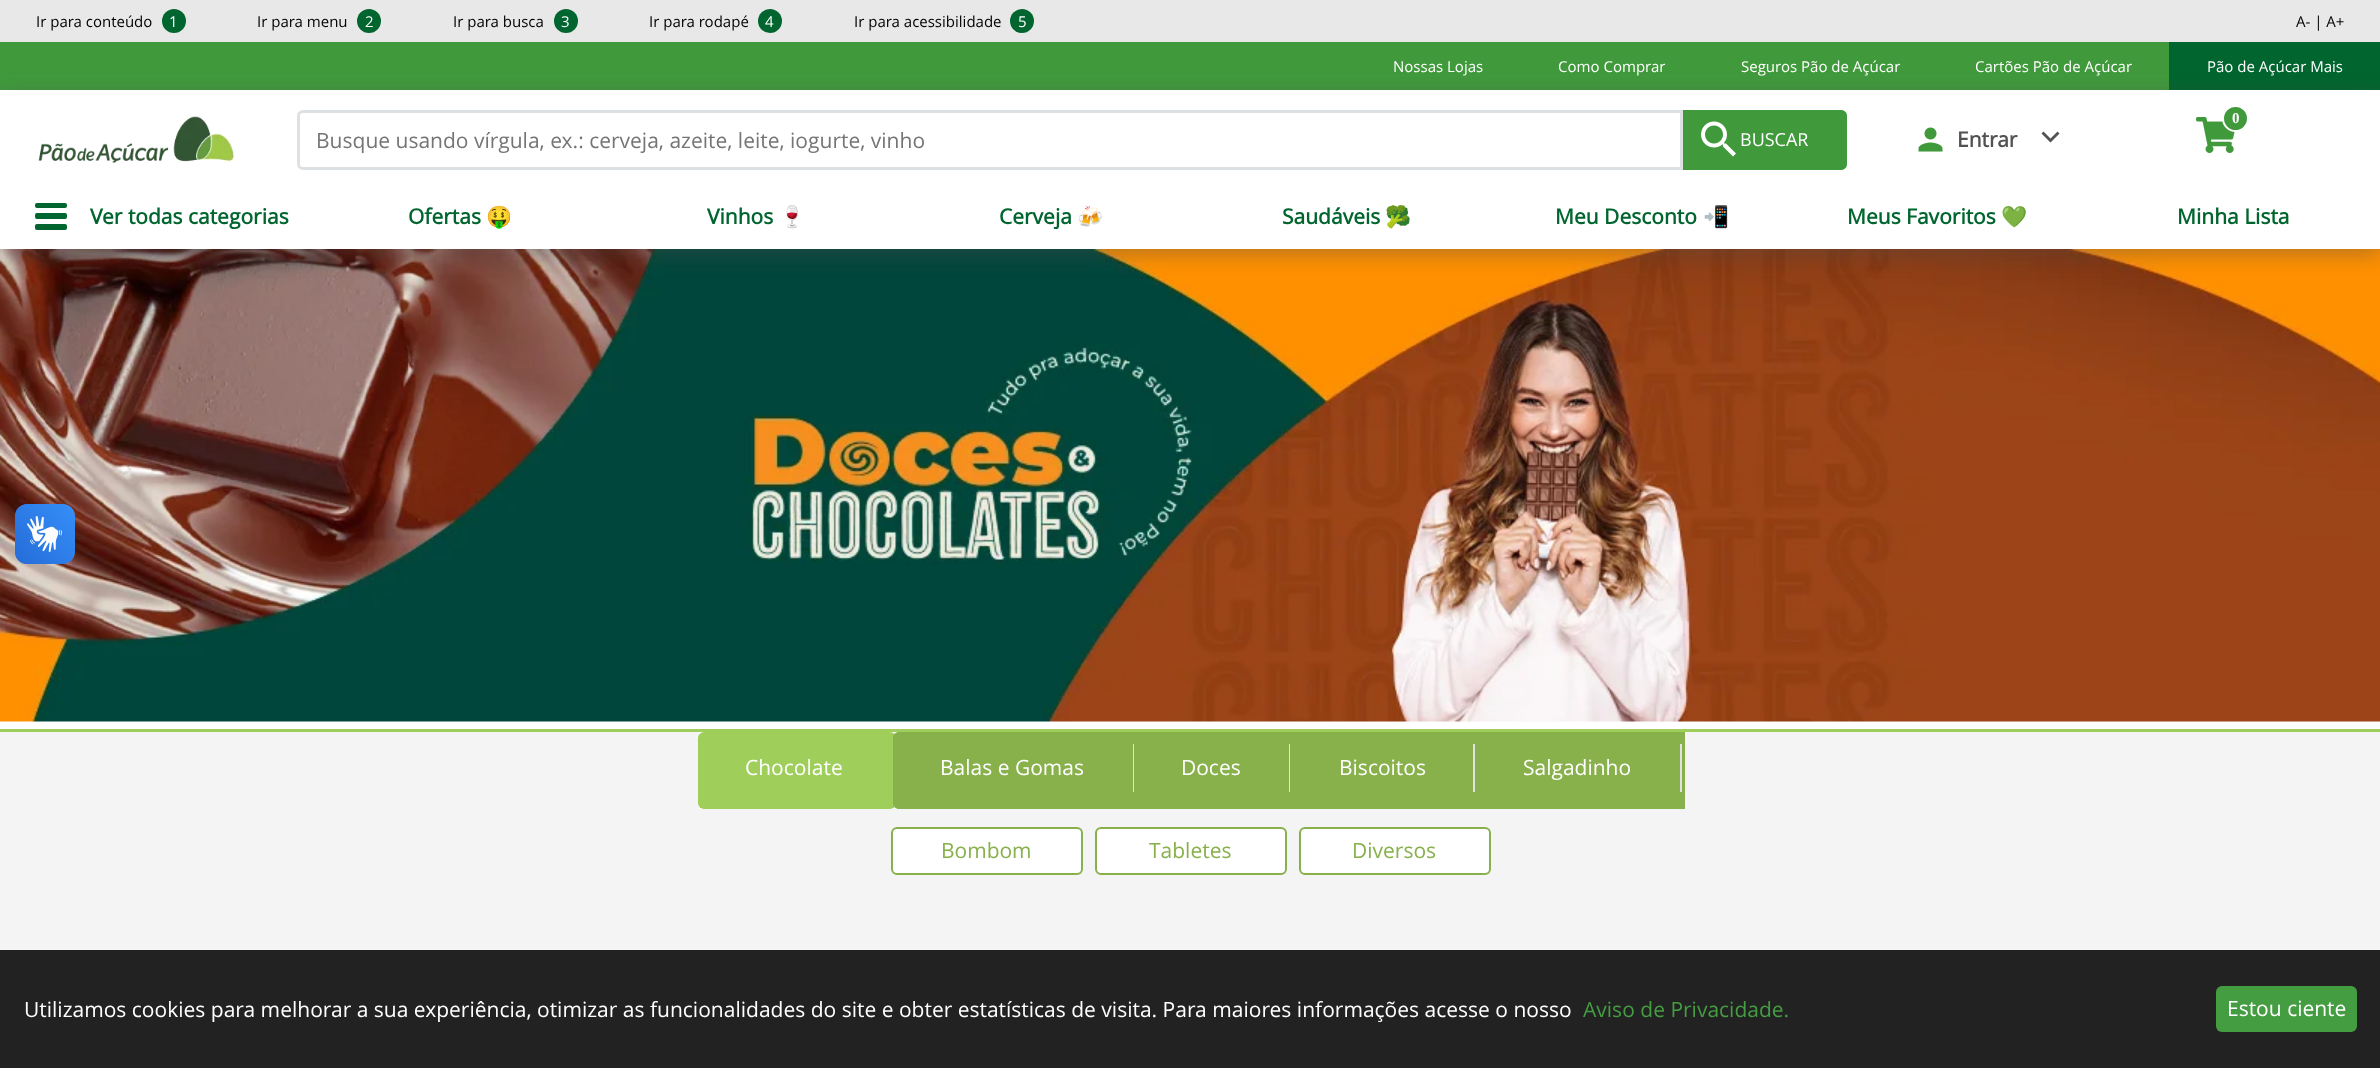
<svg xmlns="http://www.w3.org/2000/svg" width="2380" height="1068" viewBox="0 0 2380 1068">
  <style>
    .t1 { font: 15px 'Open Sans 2'; fill: #000; }
    .t2 { font: 15px 'Open Sans 2'; fill: #fff; }
    .t3 { font: 21px 'Open Sans 2'; fill: #757575; }
    .t4 { font: 18px Open Sans; fill: #fff; }
    .t5 { font: bold 21px Open Sans; fill: #525252; }
    .t6 { font: bold 15px Liberation Serif; fill: #fff; }
    .t7 { font: bold 21px Open Sans; fill: #00652e; }
    .t8 { font: bold 21px Noto Color Emoji; fill: #00652e; }
    .t9 { font: 21px Open Sans; fill: #fff; }
    .t10 { font: 21px Open Sans; fill: #88b04b; }
    .t11 { font: 21px 'Open Sans 2'; fill: #fff; }
    .t12 { font: 21px 'Open Sans 2'; fill: #459d42; }
  </style>
  <defs>
    <clipPath id="clip1"><path d="M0 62H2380V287H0ZM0 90H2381V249H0Z" clip-rule="evenodd"/></clipPath>
  </defs>
  <rect width="100%" height="100%" fill="#fff"/>
  <rect x="0" y="0" width="2380" height="42" fill="#e8e8e8"/>
  <text x="36" y="27" class="t1">Ir para conteúdo</text>
  <circle cx="174" cy="21" r="12" fill="#00652e"/>
  <text x="169" y="27" class="t2">1</text>
  <text x="257" y="27" class="t1">Ir para menu</text>
  <circle cx="369" cy="21" r="12" fill="#00652e"/>
  <text x="365" y="27" class="t2">2</text>
  <text x="453" y="27" class="t1">Ir para busca</text>
  <circle cx="566" cy="21" r="12" fill="#00652e"/>
  <text x="561" y="27" class="t2">3</text>
  <text x="649" y="27" class="t1">Ir para rodapé</text>
  <circle cx="770" cy="21" r="12" fill="#00652e"/>
  <text x="765" y="27" class="t2">4</text>
  <text x="854" y="27" class="t1">Ir para acessibilidade</text>
  <circle cx="1022" cy="21" r="12" fill="#00652e"/>
  <text x="1018" y="27" class="t2">5</text>
  <text x="2296" y="27" class="t1">A- | A+</text>
  <rect x="0" y="42" width="2169" height="48" fill="#409a3c"/>
  <text x="1393" y="72" class="t2">Nossas Lojas</text>
  <text x="1558" y="72" class="t2">Como Comprar</text>
  <text x="1741" y="72" class="t2">Seguros Pão de Açúcar</text>
  <text x="1975" y="72" class="t2">Cartões Pão de Açúcar</text>
  <rect x="2169" y="42" width="211" height="48" fill="#00652e"/>
  <text x="2207" y="72" class="t2">Pão de Açúcar Mais</text>
  <image x="0" y="249" width="2380" height="473" href="images/5.png"/>
  <g clip-path="url(#clip1)">
    <rect x="0" y="95" width="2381" height="159" fill="#4a4a4a66" filter="blur(10.5px)"/>
  </g>
  <image x="38" y="116" width="197" height="47" href="images/1.png"/>
  <path d="M303 111.5H1681.5V168.5H303C300.5 168.5 298.5 166.5 298.5 164V116C298.5 113.5 300.5 111.5 303 111.5Z" fill="none" stroke="#dee1e3" stroke-width="3"/>
  <text x="316" y="148" class="t3">Busque usando vírgula, ex.: cerveja, azeite, leite, iogurte, vinho</text>
  <path d="M1683 110H1841C1844.5 110 1847 112.5 1847 116V164C1847 167.5 1844.5 170 1841 170H1683Z" fill="#409a3c"/>
  <image x="1701" y="121" width="35" height="36" href="images/2.png"/>
  <text x="1740" y="146" class="t4">BUSCAR</text>
  <image x="1918" y="127" width="25" height="25" href="images/3.png"/>
  <text x="1957" y="147" class="t5">Entrar</text>
  <path d="M2043.5 131.5L2050.5 138.5L2057.5 131.5L2059.5 133.5L2050.5 142.5L2041.5 133.5Z" fill="#525252"/>
  <image x="2196" y="117" width="39" height="36" href="images/4.png"/>
  <circle cx="2235.5" cy="118.5" r="12.5" fill="#409a3c" stroke="#fff" stroke-width="2"/>
  <text x="2232" y="123" class="t6">0</text>
  <rect x="35" y="203" width="32" height="5" rx="2" fill="#00652e"/>
  <rect x="35" y="213" width="32" height="6" rx="2" fill="#00652e"/>
  <rect x="35" y="224" width="32" height="6" rx="2" fill="#00652e"/>
  <text x="90" y="224" class="t7">Ver todas categorias</text>
  <text x="408" y="224" class="t7">Ofertas</text>
  <text x="486" y="224" class="t8">🤑</text>
  <text x="707" y="224" class="t7">Vinhos</text>
  <text x="779" y="224" class="t8">🍷</text>
  <text x="999" y="224" class="t7">Cerveja</text>
  <text x="1077" y="224" class="t8">🍻</text>
  <text x="1282" y="224" class="t7">Saudáveis</text>
  <text x="1385" y="224" class="t8">🥦</text>
  <text x="1555" y="224" class="t7">Meu Desconto</text>
  <text x="1703" y="224" class="t8">📲</text>
  <text x="1847" y="224" class="t7">Meus Favoritos</text>
  <text x="2001" y="224" class="t8">💚</text>
  <text x="2177" y="224" class="t7">Minha Lista</text>
  <rect x="0" y="732" width="2380" height="218" fill="#f4f4f4"/>
  <rect x="0" y="729" width="2380" height="3" fill="#a0ce5b"/>
  <rect x="699" y="732" width="200" height="77" fill="#fff"/>
  <rect x="698" y="732" width="198" height="77" rx="6" fill="#a0ce5b"/>
  <text x="745" y="775" class="t9">Chocolate</text>
  <path d="M899 732H1137V809H899C895.5 809 893 806.5 893 803V738C893 734.5 895.5 732 899 732Z" fill="#88b04b"/>
  <rect x="1133" y="744" width="1" height="48" fill="#e2e2e5"/>
  <text x="940" y="775" class="t9">Balas e Gomas</text>
  <rect x="1137" y="732" width="548" height="77" fill="#88b04b"/>
  <rect x="1289" y="744" width="1" height="48" fill="#e2e2e5"/>
  <text x="1181" y="775" class="t9">Doces</text>
  <rect x="1473" y="744" width="2" height="48" fill="#e2e2e5"/>
  <text x="1339" y="775" class="t9">Biscoitos</text>
  <rect x="1680" y="744" width="2" height="48" fill="#e2e2e5"/>
  <text x="1523" y="775" class="t9">Salgadinho</text>
  <rect x="892" y="828" width="190" height="46" rx="5" fill="#fff" stroke="#88b04b" stroke-width="2"/>
  <text x="941" y="858" class="t10">Bombom</text>
  <rect x="1096" y="828" width="190" height="46" rx="5" fill="#fff" stroke="#88b04b" stroke-width="2"/>
  <text x="1149" y="858" class="t10">Tabletes</text>
  <rect x="1300" y="828" width="190" height="46" rx="5" fill="#fff" stroke="#88b04b" stroke-width="2"/>
  <text x="1352" y="858" class="t10">Diversos</text>
  <image x="15" y="504" width="60" height="60" href="images/6.png"/>
  <image x="15" y="504" width="60" height="60" href="images/7.png"/>
  <rect x="0" y="950" width="2380" height="118" fill="#222"/>
  <text x="24" y="1017" class="t11">Utilizamos cookies para melhorar a sua experiência, otimizar as funcionalidades do site e obter estatísticas de visita. Para maiores informações acesse o nosso</text>
  <text x="1583" y="1017" class="t12">Aviso de Privacidade.</text>
  <rect x="2216" y="986" width="141" height="46" rx="6" fill="#459d42"/>
  <text x="2227" y="1016" class="t11">Estou ciente</text>
</svg>
